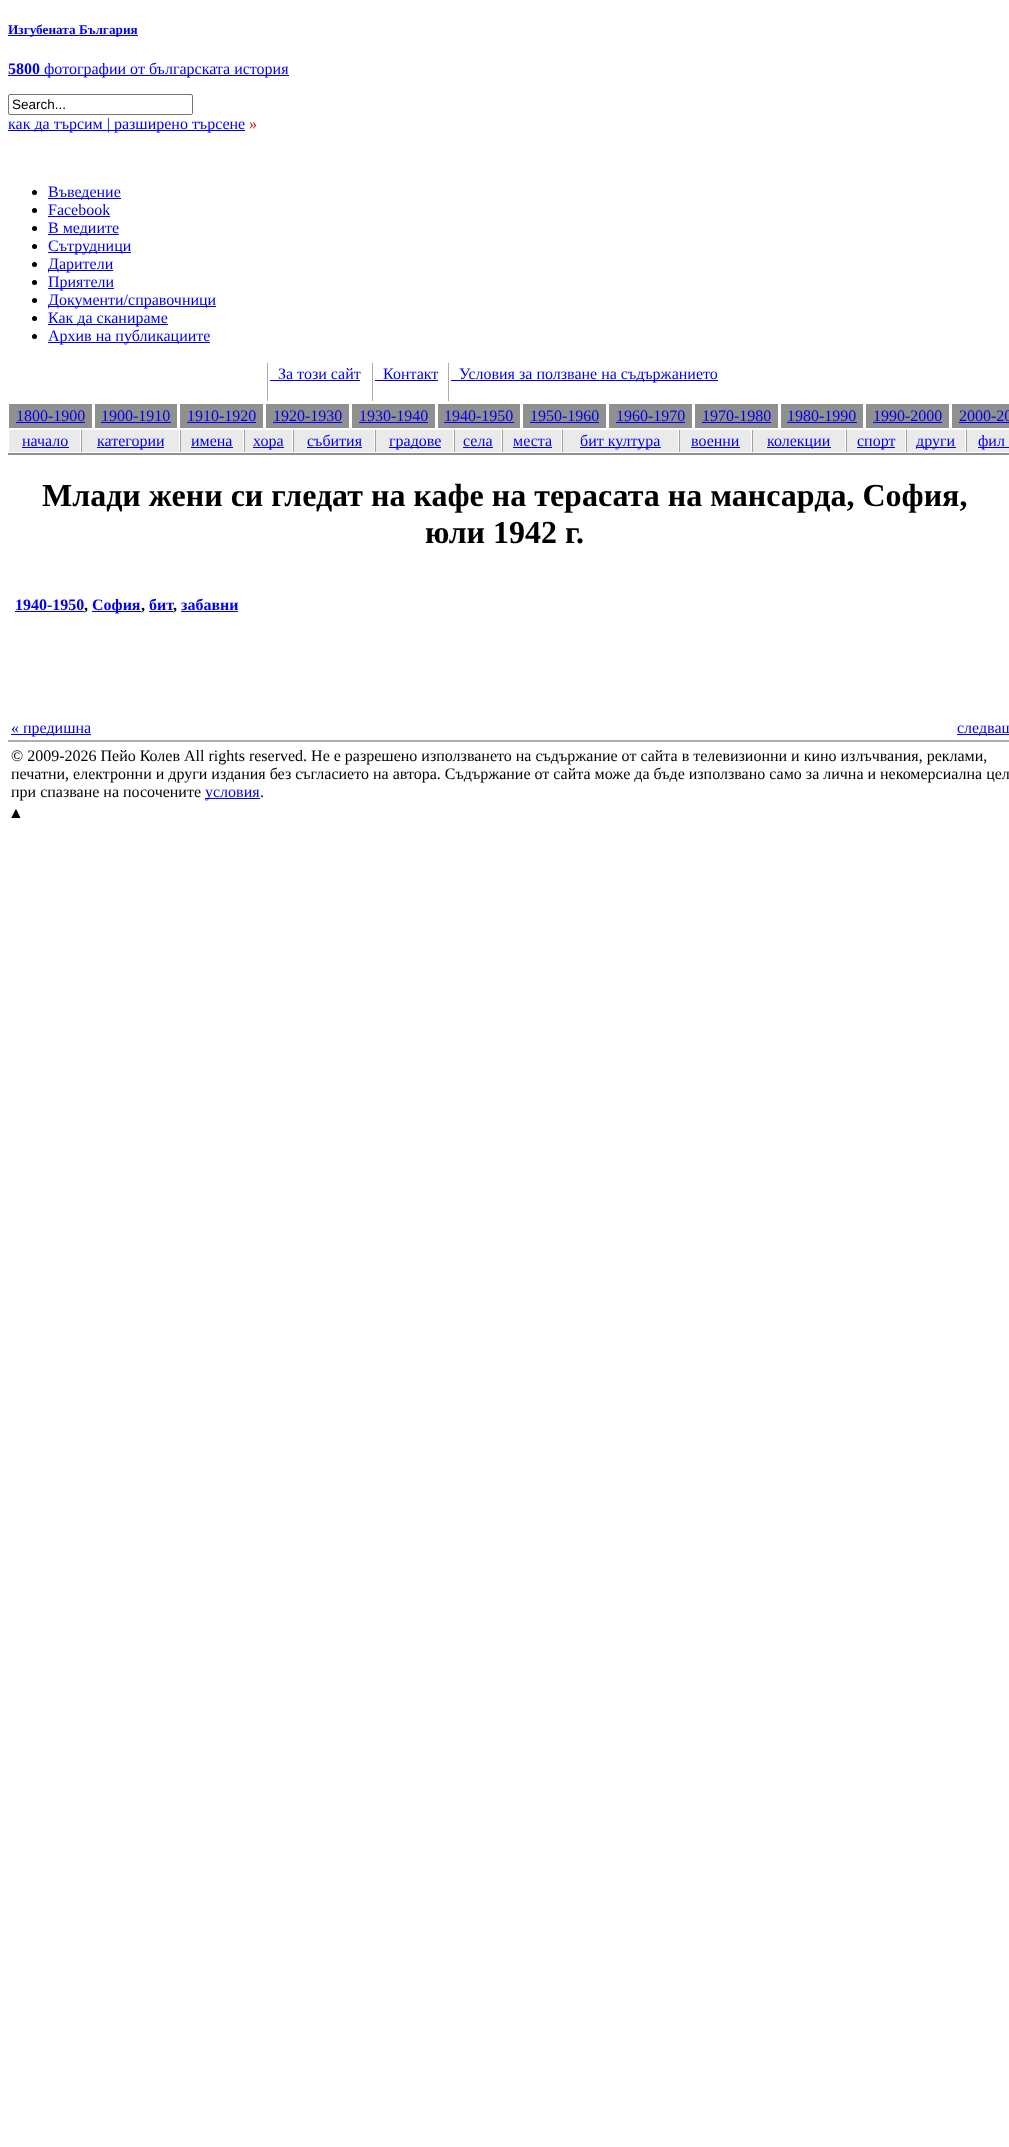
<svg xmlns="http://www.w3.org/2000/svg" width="1009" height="2147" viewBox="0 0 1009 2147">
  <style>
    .t1 { font: bold 13.25px Liberation Serif; fill: #00e; }
    .t2 { font: bold 16px Liberation Serif; fill: #00e; }
    .t3 { font: 16px Liberation Serif; fill: #00e; }
    .t4 { font: 13.5px Liberation Sans; fill: #000; }
    .t5 { font: 16px Liberation Serif; fill: #ca1111; }
    .t6 { font: bold 32px Liberation Serif; fill: #000; }
    .t7 { font: bold 16px Liberation Serif; fill: #000; }
    .t8 { font: 16px Liberation Serif; fill: #000; }
  </style>
  <rect width="100%" height="100%" fill="#fff"/>
  <rect x="8" y="35" width="130" height="1" fill="#00e"/>
  <text x="8" y="34" class="t1">Изгубената България</text>
  <text x="8" y="74" class="t2">5800</text>
  <rect x="8" y="75" width="281" height="1" fill="#00e"/>
  <text x="44" y="74" class="t3">фотографии от българската история</text>
  <rect x="8.5" y="94.5" width="184" height="20" rx="1.5" fill="none" stroke="#767676"/>
  <text x="12" y="109" class="t4">Search...</text>
  <rect x="8" y="130" width="237" height="1" fill="#00e"/>
  <text x="8" y="129" class="t3">как да търсим | разширено търсене</text>
  <text x="249" y="129" class="t5">»</text>
  <circle cx="34.5" cy="192.5" r="2.5" fill="#000"/>
  <rect x="48" y="198" width="73" height="1" fill="#00e"/>
  <text x="48" y="197" class="t3">Въведение</text>
  <circle cx="34.5" cy="210.5" r="2.5" fill="#000"/>
  <text x="48" y="215" class="t3">Facebook</text>
  <rect x="48" y="216" width="62" height="1" fill="#00e"/>
  <circle cx="34.5" cy="228.5" r="2.5" fill="#000"/>
  <rect x="48" y="234" width="71" height="1" fill="#00e"/>
  <text x="48" y="233" class="t3">В медиите</text>
  <circle cx="34.5" cy="246.5" r="2.5" fill="#000"/>
  <rect x="48" y="252" width="83" height="1" fill="#00e"/>
  <text x="48" y="251" class="t3">Сътрудници</text>
  <circle cx="34.5" cy="264.5" r="2.5" fill="#000"/>
  <rect x="48" y="270" width="65" height="1" fill="#00e"/>
  <text x="48" y="269" class="t3">Дарители</text>
  <circle cx="34.5" cy="282.5" r="2.5" fill="#000"/>
  <rect x="48" y="288" width="66" height="1" fill="#00e"/>
  <text x="48" y="287" class="t3">Приятели</text>
  <circle cx="34.5" cy="300.5" r="2.5" fill="#000"/>
  <rect x="48" y="306" width="168" height="1" fill="#00e"/>
  <text x="48" y="305" class="t3">Документи/справочници</text>
  <circle cx="34.5" cy="318.5" r="2.5" fill="#000"/>
  <rect x="48" y="324" width="120" height="1" fill="#00e"/>
  <text x="48" y="323" class="t3">Как да сканираме</text>
  <circle cx="34.5" cy="336.5" r="2.5" fill="#000"/>
  <rect x="48" y="342" width="162" height="1" fill="#00e"/>
  <text x="48" y="341" class="t3">Архив на публикациите</text>
  <rect x="267" y="363" width="1" height="38" fill="#aeaeae"/>
  <text x="278" y="379" class="t3">За този сайт</text>
  <rect x="270" y="380" width="90" height="1" fill="#00e"/>
  <rect x="372" y="363" width="1" height="38" fill="#aeaeae"/>
  <text x="383" y="379" class="t3">Контакт</text>
  <rect x="375" y="380" width="63" height="1" fill="#00e"/>
  <rect x="448" y="363" width="1" height="38" fill="#aeaeae"/>
  <rect x="451" y="380" width="267" height="1" fill="#00e"/>
  <text x="459" y="379" class="t3">Условия за ползване на съдържанието</text>
  <rect x="9" y="404" width="83" height="24" fill="#909090"/>
  <text x="16" y="421" class="t3">1800-1900</text>
  <rect x="16" y="422" width="69" height="1" fill="#00e"/>
  <rect x="95" y="404" width="82" height="24" fill="#909090"/>
  <text x="101" y="421" class="t3">1900-1910</text>
  <rect x="101" y="422" width="70" height="1" fill="#00e"/>
  <rect x="180" y="404" width="83" height="24" fill="#909090"/>
  <text x="187" y="421" class="t3">1910-1920</text>
  <rect x="187" y="422" width="69" height="1" fill="#00e"/>
  <rect x="266" y="404" width="83" height="24" fill="#909090"/>
  <text x="273" y="421" class="t3">1920-1930</text>
  <rect x="273" y="422" width="69" height="1" fill="#00e"/>
  <rect x="352" y="404" width="83" height="24" fill="#909090"/>
  <text x="359" y="421" class="t3">1930-1940</text>
  <rect x="359" y="422" width="69" height="1" fill="#00e"/>
  <rect x="438" y="404" width="82" height="24" fill="#909090"/>
  <text x="444" y="421" class="t3">1940-1950</text>
  <rect x="444" y="422" width="70" height="1" fill="#00e"/>
  <rect x="523" y="404" width="83" height="24" fill="#909090"/>
  <text x="530" y="421" class="t3">1950-1960</text>
  <rect x="530" y="422" width="69" height="1" fill="#00e"/>
  <rect x="609" y="404" width="83" height="24" fill="#909090"/>
  <text x="616" y="421" class="t3">1960-1970</text>
  <rect x="616" y="422" width="69" height="1" fill="#00e"/>
  <rect x="695" y="404" width="83" height="24" fill="#909090"/>
  <text x="702" y="421" class="t3">1970-1980</text>
  <rect x="702" y="422" width="69" height="1" fill="#00e"/>
  <rect x="781" y="404" width="82" height="24" fill="#909090"/>
  <text x="787" y="421" class="t3">1980-1990</text>
  <rect x="787" y="422" width="70" height="1" fill="#00e"/>
  <rect x="866" y="404" width="83" height="24" fill="#909090"/>
  <text x="873" y="421" class="t3">1990-2000</text>
  <rect x="873" y="422" width="69" height="1" fill="#00e"/>
  <rect x="952" y="404" width="57" height="24" fill="#909090"/>
  <text x="959" y="421" class="t3">2000-20</text>
  <rect x="959" y="422" width="50" height="1" fill="#00e"/>
  <rect x="8" y="453" width="1001" height="2" fill="#909090"/>
  <rect x="9" y="430" width="71" height="22" fill="#eaeaea"/>
  <text x="22" y="446" class="t3">начало</text>
  <rect x="22" y="447" width="47" height="1" fill="#00e"/>
  <rect x="82" y="430" width="97" height="22" fill="#eaeaea"/>
  <rect x="81" y="430" width="1" height="22" fill="#a0a0a0"/>
  <rect x="97" y="447" width="67" height="1" fill="#00e"/>
  <text x="97" y="446" class="t3">категории</text>
  <rect x="181" y="430" width="62" height="22" fill="#eaeaea"/>
  <rect x="180" y="430" width="1" height="22" fill="#a0a0a0"/>
  <text x="191" y="446" class="t3">имена</text>
  <rect x="191" y="447" width="42" height="1" fill="#00e"/>
  <rect x="245" y="430" width="47" height="22" fill="#eaeaea"/>
  <rect x="244" y="430" width="1" height="22" fill="#a0a0a0"/>
  <rect x="253" y="447" width="31" height="1" fill="#00e"/>
  <text x="253" y="446" class="t3">хора</text>
  <rect x="294" y="430" width="80" height="22" fill="#eaeaea"/>
  <rect x="293" y="430" width="1" height="22" fill="#a0a0a0"/>
  <text x="307" y="446" class="t3">събития</text>
  <rect x="307" y="447" width="55" height="1" fill="#00e"/>
  <rect x="376" y="430" width="77" height="22" fill="#eaeaea"/>
  <rect x="375" y="430" width="1" height="22" fill="#a0a0a0"/>
  <rect x="389" y="447" width="52" height="1" fill="#00e"/>
  <text x="389" y="446" class="t3">градове</text>
  <rect x="455" y="430" width="46" height="22" fill="#eaeaea"/>
  <rect x="454" y="430" width="1" height="22" fill="#a0a0a0"/>
  <text x="463" y="446" class="t3">села</text>
  <rect x="463" y="447" width="30" height="1" fill="#00e"/>
  <rect x="503" y="430" width="58" height="22" fill="#eaeaea"/>
  <rect x="502" y="430" width="1" height="22" fill="#a0a0a0"/>
  <text x="513" y="446" class="t3">места</text>
  <rect x="513" y="447" width="39" height="1" fill="#00e"/>
  <rect x="563" y="430" width="115" height="22" fill="#eaeaea"/>
  <rect x="562" y="430" width="1" height="22" fill="#a0a0a0"/>
  <rect x="580" y="447" width="81" height="1" fill="#00e"/>
  <text x="580" y="446" class="t3">бит култура</text>
  <rect x="680" y="430" width="71" height="22" fill="#eaeaea"/>
  <rect x="679" y="430" width="1" height="22" fill="#a0a0a0"/>
  <text x="691" y="446" class="t3">военни</text>
  <rect x="691" y="447" width="49" height="1" fill="#00e"/>
  <rect x="753" y="430" width="92" height="22" fill="#eaeaea"/>
  <rect x="752" y="430" width="1" height="22" fill="#a0a0a0"/>
  <rect x="767" y="447" width="64" height="1" fill="#00e"/>
  <text x="767" y="446" class="t3">колекции</text>
  <rect x="847" y="430" width="58" height="22" fill="#eaeaea"/>
  <rect x="846" y="430" width="1" height="22" fill="#a0a0a0"/>
  <rect x="857" y="447" width="38" height="1" fill="#00e"/>
  <text x="857" y="446" class="t3">спорт</text>
  <rect x="907" y="430" width="58" height="22" fill="#eaeaea"/>
  <rect x="906" y="430" width="1" height="22" fill="#a0a0a0"/>
  <rect x="916" y="447" width="40" height="1" fill="#00e"/>
  <text x="916" y="446" class="t3">други</text>
  <rect x="967" y="430" width="42" height="22" fill="#eaeaea"/>
  <rect x="966" y="430" width="1" height="22" fill="#a0a0a0"/>
  <rect x="978" y="447" width="31" height="1" fill="#00e"/>
  <text x="978" y="446" class="t3">фил</text>
  <text x="42" y="506" class="t6">Млади жени си гледат на кафе на терасата на мансарда, София,</text>
  <text x="425" y="543" class="t6">юли 1942 г.</text>
  <text x="15" y="610" class="t2">1940-1950</text>
  <rect x="15" y="611" width="69" height="1" fill="#00e"/>
  <text x="84" y="610" class="t7">,</text>
  <rect x="92" y="611" width="49" height="1" fill="#00e"/>
  <text x="92" y="610" class="t2">София</text>
  <text x="141" y="610" class="t7">,</text>
  <text x="149" y="610" class="t2">бит</text>
  <rect x="149" y="611" width="24" height="1" fill="#00e"/>
  <text x="173" y="610" class="t7">,</text>
  <text x="181" y="610" class="t2">забавни</text>
  <rect x="181" y="611" width="57" height="1" fill="#00e"/>
  <rect x="11" y="734" width="80" height="1" fill="#00e"/>
  <text x="11" y="733" class="t3">« предишна</text>
  <rect x="957" y="734" width="52" height="1" fill="#00e"/>
  <text x="957" y="733" class="t3">следващ</text>
  <rect x="8" y="740" width="1001" height="2" fill="#aeaeae"/>
  <text x="11" y="761" class="t8">© 2009-2026 Пейо Колев All rights reserved. Не е разрешено използването на съдържание от сайта в телевизионни и кино излъчвания, реклами,</text>
  <text x="11" y="779" class="t8">печатни, електронни и други издания без съгласието на автора. Съдържание от сайта може да бъде използвано само за лична и некомерсиална цел</text>
  <text x="11" y="797" class="t8">при спазване на посочените</text>
  <rect x="205" y="798" width="55" height="1" fill="#00e"/>
  <text x="205" y="797" class="t3">условия</text>
  <text x="260" y="797" class="t8">.</text>
  <text x="8" y="818" class="t8">▲</text>
</svg>
